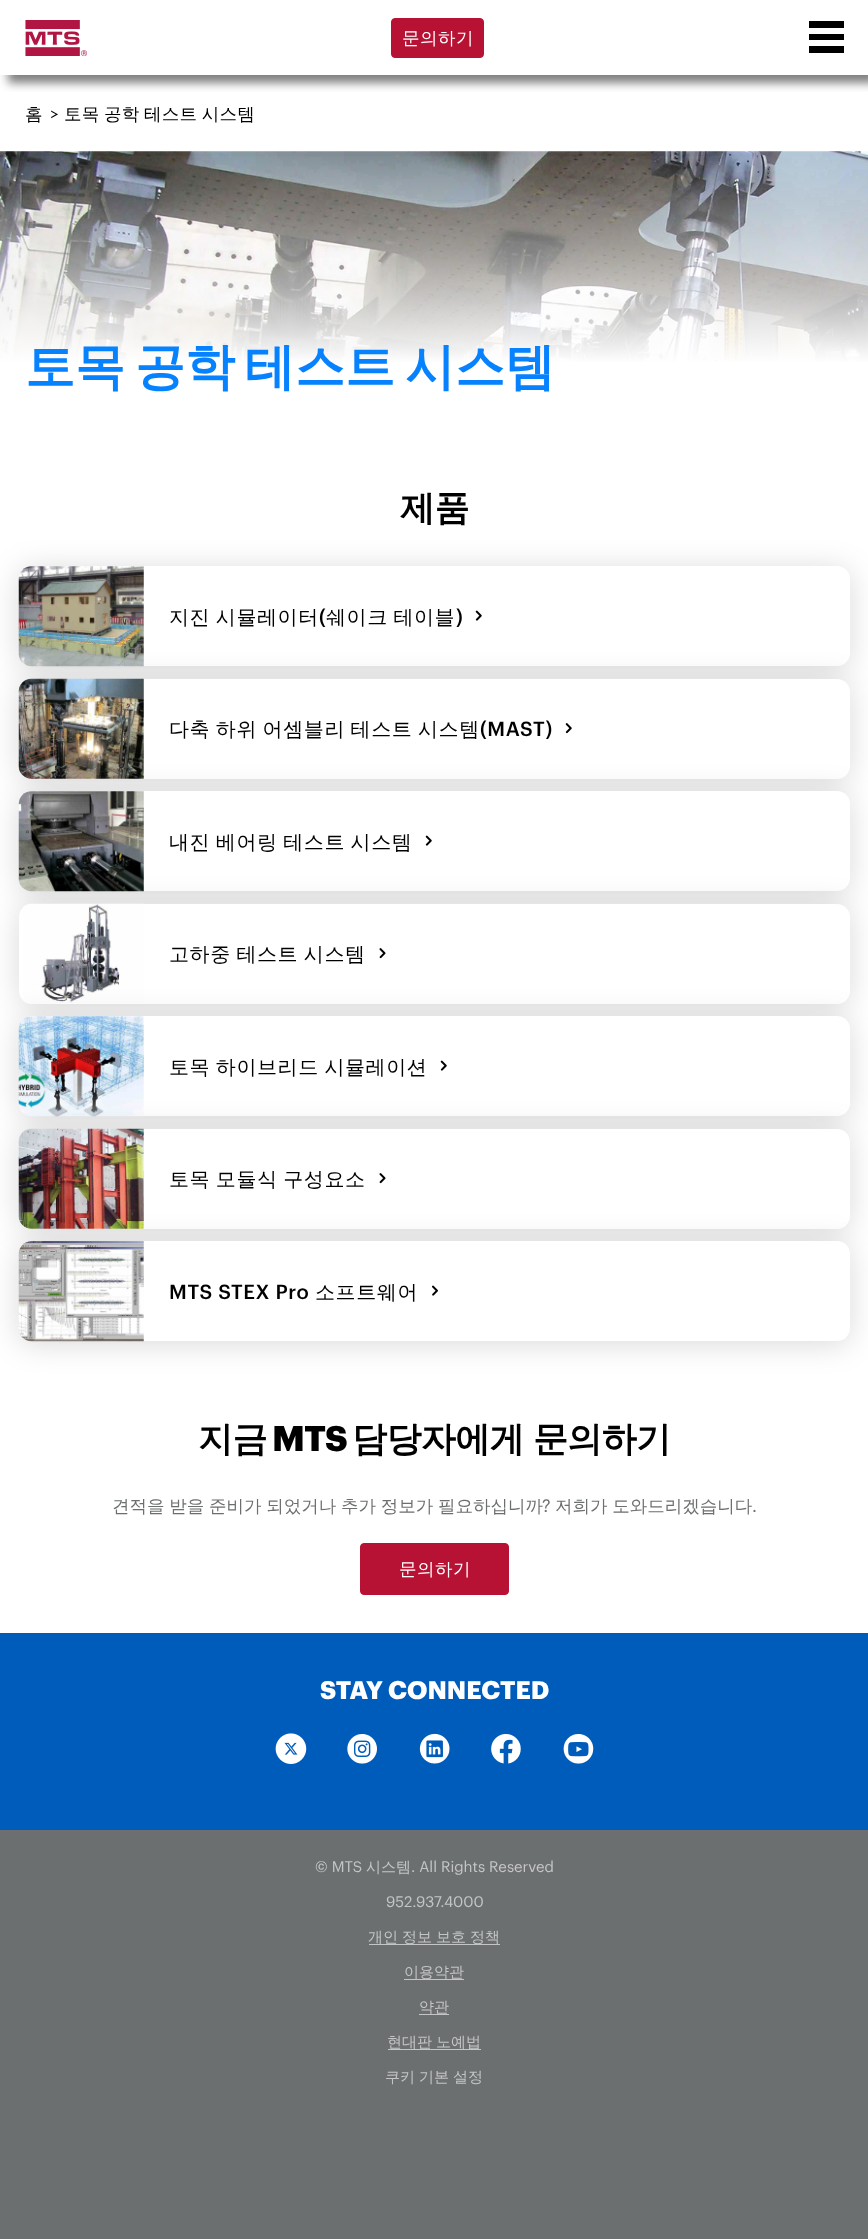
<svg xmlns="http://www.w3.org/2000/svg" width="868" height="2239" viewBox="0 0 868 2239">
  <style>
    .t1 { font: 500 17.5px WenQuanYi Zen Hei; letter-spacing: 0.5px; fill: #fff; }
    .t2 { font: 500 17.5px WenQuanYi Zen Hei; letter-spacing: 0.25px; fill: #000; }
    .t3 { font: 17.5px Graphik; fill: #000; }
    .t4 { font: bold 50px WenQuanYi Zen Hei; fill: #0682ff; }
    .t5 { font: bold 35px WenQuanYi Zen Hei; letter-spacing: -0.6px; fill: #000; }
    .t6 { font: 500 20px WenQuanYi Zen Hei; letter-spacing: 0.6px; fill: #000; }
    .t7 { font: 500 20px Graphik; letter-spacing: 0.6px; fill: #000; }
    .t8 { font: bold 35px Graphik; letter-spacing: -0.6px; fill: #000; }
    .t9 { font: 500 17.5px WenQuanYi Zen Hei; fill: #6c6f70; }
    .t10 { font: 17.5px Graphik; fill: #6c6f70; }
    .t11 { font: bold 25px Graphik; fill: #fff; }
    .t12 { font: 15px Graphik; fill: #c4c5c6; }
    .t13 { font: 500 15px WenQuanYi Zen Hei; fill: #c4c5c6; }
  </style>
  <defs>
    <clipPath id="clip1"><rect x="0" y="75" width="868" height="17"/></clipPath>
    <linearGradient id="g1" gradientUnits="userSpaceOnUse" x1="434" y1="151" x2="434" y2="454"><stop offset="0" stop-color="#fff" stop-opacity="0"/><stop offset="0.35" stop-color="#fff" stop-opacity="0.5"/><stop offset="0.7" stop-color="#fff"/></linearGradient>
  </defs>
  <rect width="100%" height="100%" fill="#6c6f70"/>
  <rect x="0" y="0" width="868" height="1633" fill="#fff"/>
  <g clip-path="url(#clip1)">
    <rect x="8" y="8" width="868" height="75" fill="#00000080" filter="blur(5px)"/>
  </g>
  <image x="25" y="20" width="62" height="36" href="images/1.png"/>
  <rect x="391.5" y="18.5" width="92" height="39" rx="3.5" fill="#b71234" stroke="#b71234"/>
  <text x="402" y="44" class="t1">문의하기</text>
  <rect x="809" y="21" width="35" height="7" fill="#000"/>
  <rect x="809" y="34" width="35" height="6" fill="#000"/>
  <rect x="809" y="46" width="35" height="7" fill="#000"/>
  <text x="25" y="120" class="t2">홈</text>
  <text x="50" y="120" class="t3">&gt;</text>
  <text x="64" y="120" word-spacing="-1" class="t2">토목 공학 테스트 시스템</text>
  <image x="0" y="151" width="868" height="211" href="images/2.png"/>
  <rect x="0" y="156" width="868" height="206" fill="url(#g1)"/>
  <text x="25" y="384" word-spacing="-5" class="t4">토목 공학 테스트 시스템</text>
  <rect x="19" y="569" width="831" height="100" rx="13" fill="#00000026" filter="blur(15px)"/>
  <text x="400" y="520" class="t5">제품</text>
  <rect x="19" y="566" width="831" height="100" rx="13" fill="#fff"/>
  <image x="18" y="566" width="126" height="101" href="images/3.png"/>
  <text x="169" y="624" word-spacing="-1" class="t6">지진 시뮬레이터</text>
  <text x="319" y="624" class="t7">(</text>
  <text x="326" y="624" word-spacing="-1" class="t6">쉐이크 테이블</text>
  <text x="456" y="624" class="t7">)</text>
  <image x="475" y="610" width="7" height="11" href="images/4.png"/>
  <rect x="19" y="681" width="831" height="100" rx="13" fill="#00000026" filter="blur(15px)"/>
  <rect x="19" y="679" width="831" height="100" rx="13" fill="#fff"/>
  <image x="18" y="678" width="126" height="101" href="images/5.png"/>
  <text x="169" y="736" word-spacing="-1" class="t6">다축 하위 어셈블리 테스트 시스템</text>
  <text x="480" y="736" class="t7">(MAST)</text>
  <image x="565" y="723" width="7" height="11" href="images/6.png"/>
  <rect x="19" y="794" width="831" height="100" rx="13" fill="#00000026" filter="blur(15px)"/>
  <rect x="19" y="791" width="831" height="100" rx="13" fill="#fff"/>
  <image x="18" y="791" width="126" height="101" href="images/7.png"/>
  <text x="169" y="849" word-spacing="-1" class="t6">내진 베어링 테스트 시스템</text>
  <image x="425" y="835" width="7" height="11" href="images/4.png"/>
  <rect x="19" y="906" width="831" height="100" rx="13" fill="#00000026" filter="blur(15px)"/>
  <rect x="19" y="904" width="831" height="100" rx="13" fill="#fff"/>
  <image x="23" y="903" width="121" height="100" href="images/8.png"/>
  <text x="169" y="961" word-spacing="-1" class="t6">고하중 테스트 시스템</text>
  <image x="379" y="948" width="7" height="11" href="images/9.png"/>
  <rect x="19" y="1019" width="831" height="100" rx="13" fill="#00000026" filter="blur(15px)"/>
  <rect x="19" y="1016" width="831" height="100" rx="13" fill="#fff"/>
  <image x="18" y="1016" width="126" height="101" href="images/10.png"/>
  <text x="169" y="1074" word-spacing="-1" class="t6">토목 하이브리드 시뮬레이션</text>
  <image x="440" y="1060" width="7" height="11" href="images/4.png"/>
  <rect x="19" y="1131" width="831" height="100" rx="13" fill="#00000026" filter="blur(15px)"/>
  <rect x="19" y="1129" width="831" height="100" rx="13" fill="#fff"/>
  <image x="18" y="1128" width="126" height="101" href="images/11.png"/>
  <text x="169" y="1186" word-spacing="-1" class="t6">토목 모듈식 구성요소</text>
  <image x="379" y="1173" width="7" height="11" href="images/9.png"/>
  <rect x="19" y="1244" width="831" height="100" rx="13" fill="#00000026" filter="blur(15px)"/>
  <rect x="19" y="1241" width="831" height="100" rx="13" fill="#fff"/>
  <image x="18" y="1241" width="126" height="101" href="images/12.png"/>
  <text x="169" y="1299" class="t7">MTS STEX Pro</text>
  <text x="315" y="1299" class="t6">소프트웨어</text>
  <image x="432" y="1285" width="6" height="11" href="images/13.png"/>
  <text x="198" y="1451" class="t5">지금</text>
  <text x="272" y="1451" class="t8">MTS</text>
  <text x="352" y="1451" word-spacing="-1" class="t5">담당자에게 문의하기</text>
  <text x="112" y="1512" word-spacing="-0.5" class="t9">견적을 받을 준비가 되었거나 추가 정보가 필요하십니까</text>
  <text x="542" y="1512" class="t10">?</text>
  <text x="555" y="1512" word-spacing="-0.5" class="t9">저희가 도와드리겠습니다</text>
  <text x="752" y="1512" class="t10">.</text>
  <rect x="360.5" y="1543.5" width="148" height="51" rx="3.5" fill="#b71234" stroke="#b71234"/>
  <text x="399" y="1575" class="t1">문의하기</text>
  <rect x="0" y="1633" width="868" height="197" fill="#005cba"/>
  <text x="320" y="1699" class="t11">STAY CONNECTED</text>
  <image x="275" y="1733" width="32" height="31" href="images/14.png"/>
  <image x="347" y="1734" width="30" height="30" href="images/15.png"/>
  <image x="419" y="1733" width="31" height="31" href="images/16.png"/>
  <image x="491" y="1734" width="30" height="30" href="images/17.png"/>
  <image x="563" y="1734" width="31" height="30" href="images/18.png"/>
  <text x="315" y="1872" class="t12">© MTS</text>
  <text x="366" y="1872" class="t13">시스템</text>
  <text x="411" y="1872" class="t12">. All Rights Reserved</text>
  <text x="386" y="1907" class="t12">952.937.4000</text>
  <rect x="369" y="1944" width="131" height="1" fill="#c4c5c6"/>
  <text x="368" y="1942" word-spacing="-0.5" class="t13">개인 정보 보호 정책</text>
  <rect x="404" y="1979" width="60" height="1" fill="#c4c5c6"/>
  <text x="404" y="1977" class="t13">이용약관</text>
  <rect x="419" y="2014" width="30" height="1" fill="#c4c5c6"/>
  <text x="419" y="2012" class="t13">약관</text>
  <rect x="388" y="2049" width="93" height="1" fill="#c4c5c6"/>
  <text x="387" y="2047" word-spacing="-0.5" class="t13">현대판 노예법</text>
  <text x="385" y="2082" word-spacing="-0.5" class="t13">쿠키 기본 설정</text>
</svg>
